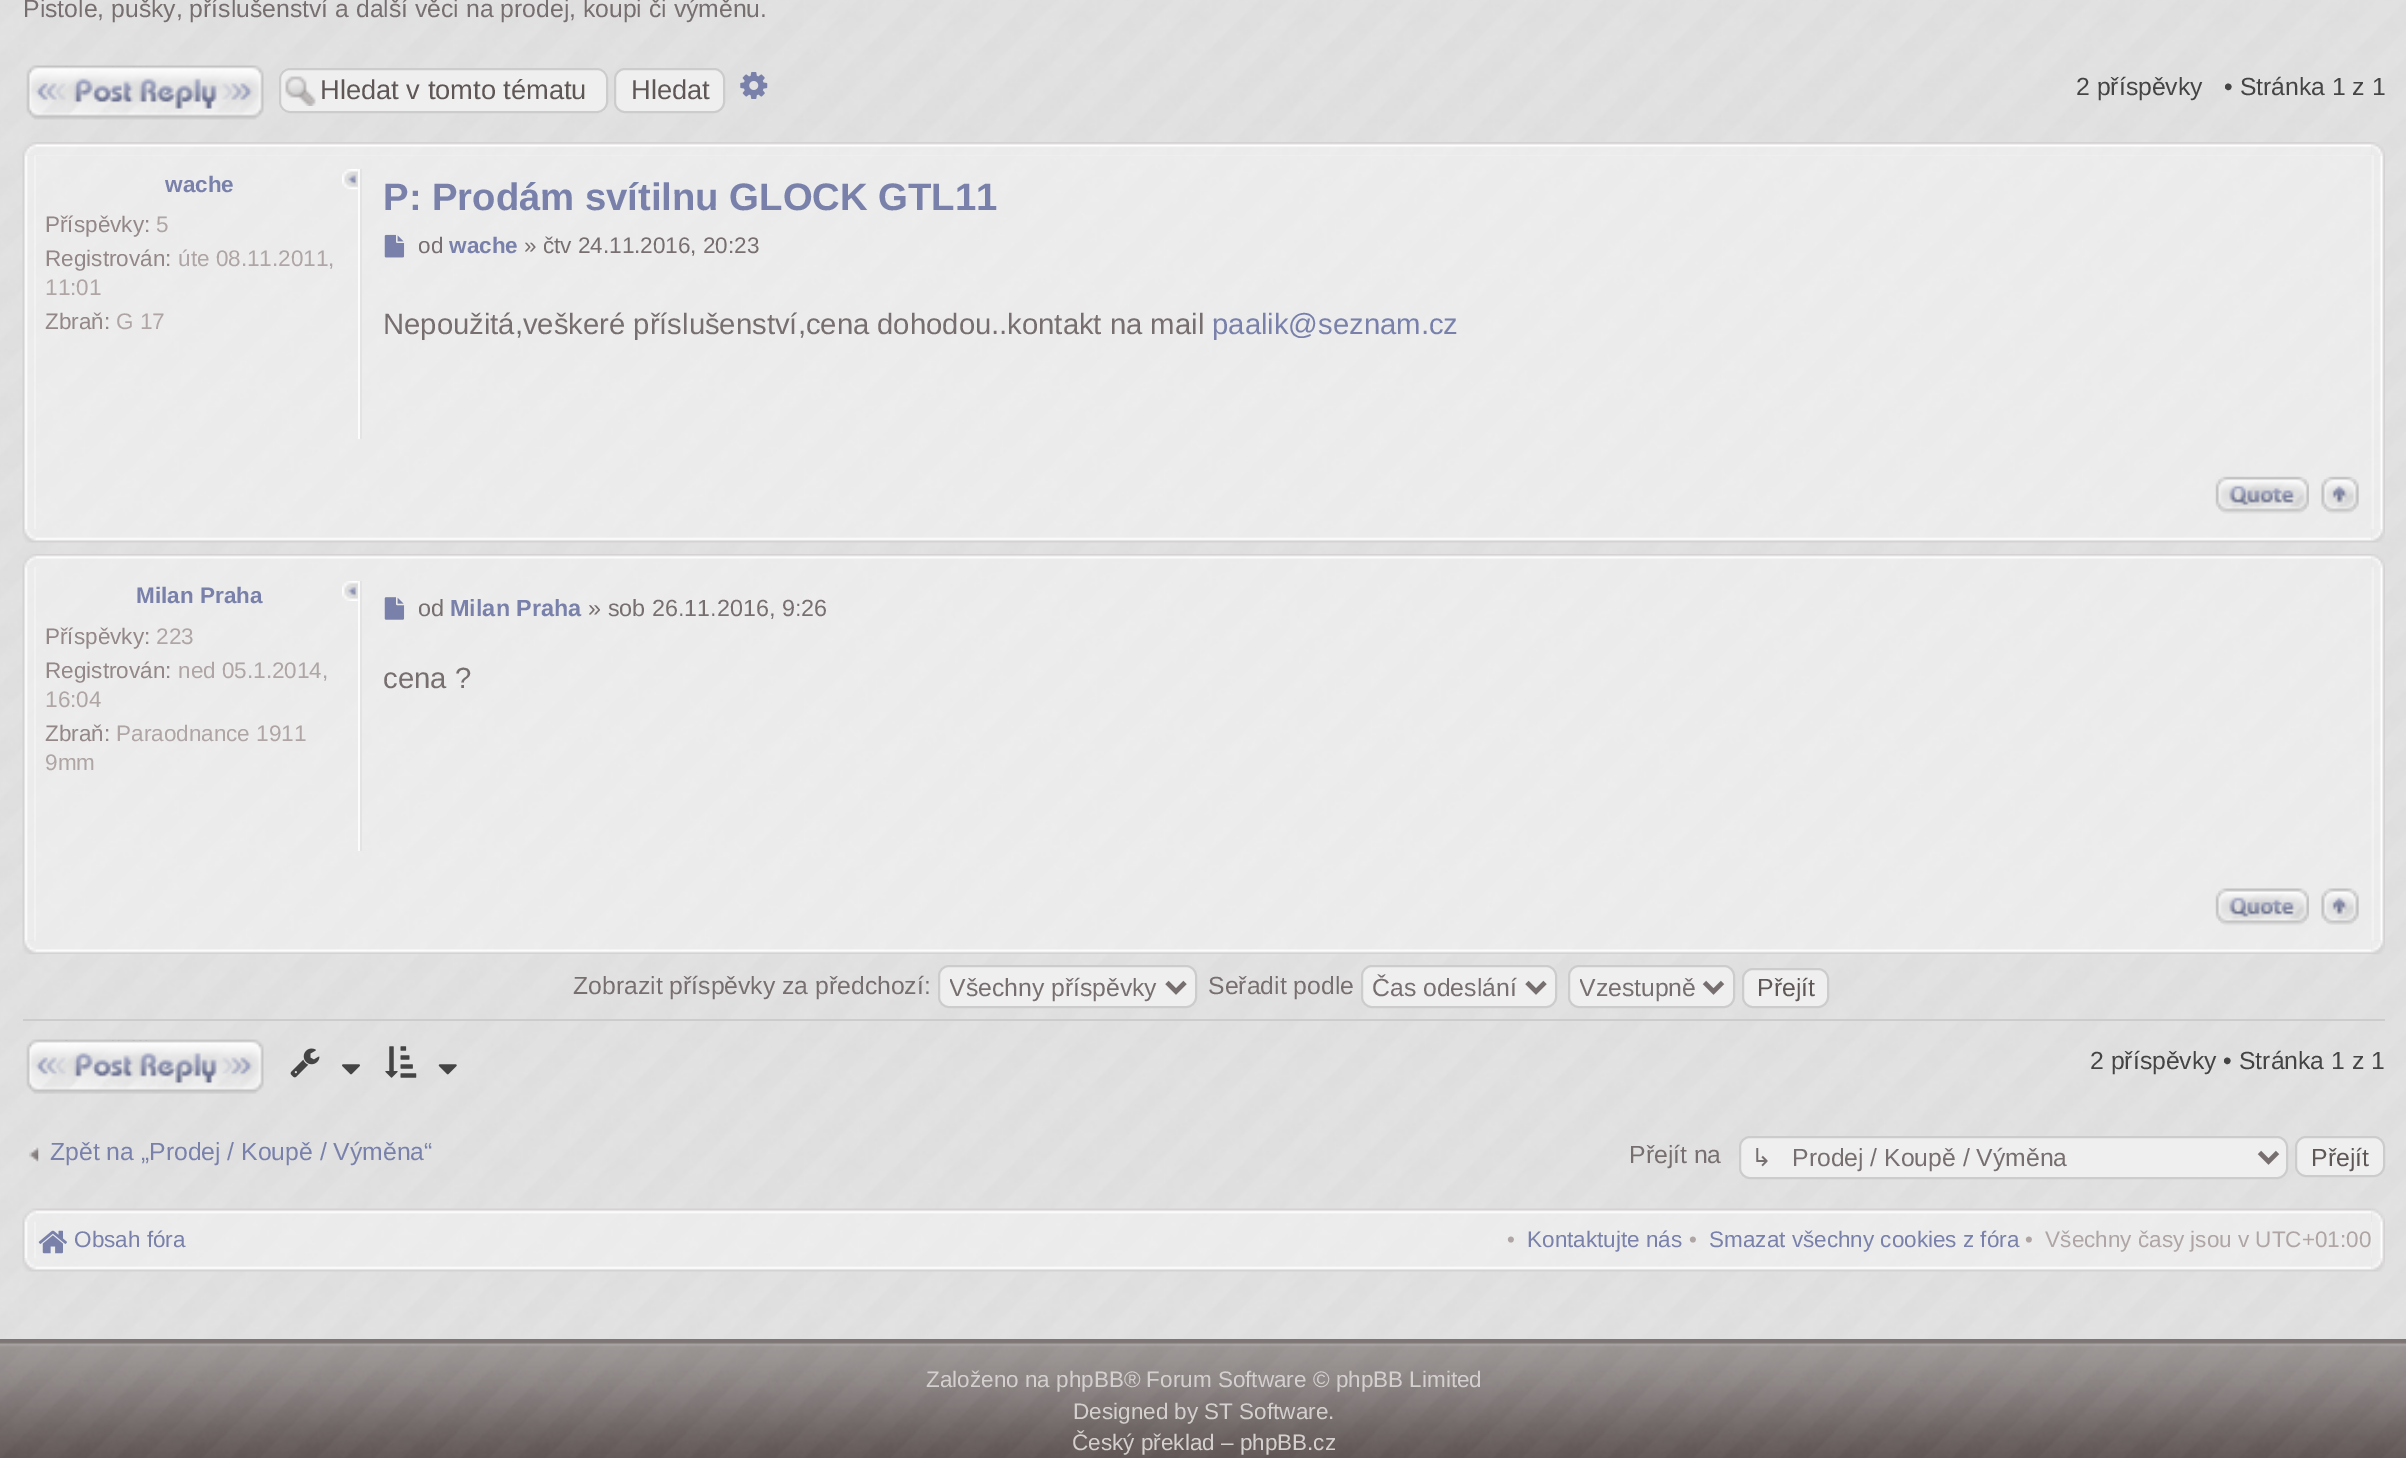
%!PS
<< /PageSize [2406 1458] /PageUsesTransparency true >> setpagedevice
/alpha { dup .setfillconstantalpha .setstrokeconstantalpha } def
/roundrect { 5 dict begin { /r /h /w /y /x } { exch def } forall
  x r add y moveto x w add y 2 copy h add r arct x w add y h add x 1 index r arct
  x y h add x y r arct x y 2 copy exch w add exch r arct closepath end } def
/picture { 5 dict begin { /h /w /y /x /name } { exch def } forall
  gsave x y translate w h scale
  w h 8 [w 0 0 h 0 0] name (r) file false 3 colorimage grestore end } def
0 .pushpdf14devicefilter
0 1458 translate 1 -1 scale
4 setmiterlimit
1 setgray
0 0 2406 1458 rectfill
(img1.rgb) 0 1168 2406 171 picture
(img2.rgb) 0 0 2406 1168 picture
/LiberationSans-Regular [24.75 0 0 -24.75 0 0] selectfont
0.467 0.435 0.435 setrgbcolor
23 17 moveto (Pistole, pušky, příslušenství a další věci na prodej, koupi či výměnu.) show
(img3.rgb) 26 65 238 55 picture
0.937 setgray
279 68 329 45 11 roundrect fill
(img4.rgb) 285 76 31 30 picture
0.8 setgray
2 setlinewidth
280 69 327 43 10 roundrect stroke
/LiberationSans-Regular [27.25 0 0 -27.25 0 0] selectfont
0.373 0.341 0.337 setrgbcolor
320 99 moveto (Hledat v tomto tématu) show
0.937 setgray
615 69 109 43 10 roundrect gsave fill grestore
0.8 setgray
stroke
0.373 0.341 0.337 setrgbcolor
631 99 moveto (Hledat) show
(img5.rgb) 740 72 28 27 picture
/LiberationSans-Regular [24.75 0 0 -24.75 0 0] selectfont
0.267 setgray
2076 95 moveto (2 příspěvky) show
2224 95 moveto (• Stránka 1 z 1) show
(img6.rgb) 36 142 2336 14 picture
(img7.rgb) 22 142 14 14 picture
(img8.rgb) 2371 142 14 14 picture
(img9.rgb) 22 155 14 374 picture
(img10.rgb) 2371 155 14 374 picture
0.5 alpha
0.969 setgray
34 155 2340 374 rectfill
1 alpha
0.89 setgray
360 169 2 270 rectfill
0.988 setgray
358 169 2 270 rectfill
/LiberationSans-Bold [22.5 0 0 -22.5 0 0] selectfont
0.475 0.506 0.671 setrgbcolor
165 192 moveto (wache) show
(img11.rgb) 342 169 16 21 picture
/LiberationSans-Regular [22.5 0 0 -22.5 0 0] selectfont
0.576 0.529 0.529 setrgbcolor
45 232 moveto (Příspěvky:) show
0.686 0.647 0.647 setrgbcolor
156 232 moveto (5) show
0.576 0.529 0.529 setrgbcolor
45 266 moveto (Registrován:) show
0.686 0.647 0.647 setrgbcolor
178 266 moveto (úte 08.11.2011,) show
45 295 moveto (11:01) show
0.576 0.529 0.529 setrgbcolor
45 329 moveto (Zbraň:) show
0.686 0.647 0.647 setrgbcolor
116 329 moveto (G 17) show
/LiberationSans-Bold [38.25 0 0 -38.25 0 0] selectfont
0.475 0.506 0.671 setrgbcolor
383 210 moveto (P: Prodám svítilnu GLOCK GTL11) show
(img12.rgb) 384 234 21 24 picture
/LiberationSans-Regular [22.5 0 0 -22.5 0 0] selectfont
0.467 0.435 0.435 setrgbcolor
418 253 moveto (od) show
/LiberationSans-Bold [22.5 0 0 -22.5 0 0] selectfont
0.475 0.506 0.671 setrgbcolor
449 253 moveto (wache) show
/LiberationSans-Regular [22.5 0 0 -22.5 0 0] selectfont
0.467 0.435 0.435 setrgbcolor
524 253 moveto (» čtv 24.11.2016, 20:23) show
/LiberationSans-Regular [29.25 0 0 -29.25 0 0] selectfont
383 334 moveto (Nepoužitá,veškeré příslušenství,cena dohodou..kontakt na mail) show
0.475 0.506 0.671 setrgbcolor
1212 334 moveto (paalik@seznam.cz) show
(img13.rgb) 2215 476 94 38 picture
(img14.rgb) 2217 478 91 34 picture
(img15.rgb) 2321 476 38 38 picture
(img16.rgb) 2321 478 38 34 picture
(img17.rgb) 36 529 2336 14 picture
(img18.rgb) 22 529 14 14 picture
(img19.rgb) 2371 529 14 14 picture
(img20.rgb) 36 554 2336 13 picture
(img21.rgb) 22 554 14 14 picture
(img22.rgb) 2371 554 14 14 picture
(img23.rgb) 22 567 14 374 picture
(img24.rgb) 2371 567 14 374 picture
0.5 alpha
0.969 setgray
34 567 2340 374 rectfill
1 alpha
0.89 setgray
360 581 2 270 rectfill
0.988 setgray
358 581 2 270 rectfill
/LiberationSans-Bold [22.5 0 0 -22.5 0 0] selectfont
0.475 0.506 0.671 setrgbcolor
136 603 moveto (Milan Praha) show
(img25.rgb) 342 581 16 20 picture
/LiberationSans-Regular [22.5 0 0 -22.5 0 0] selectfont
0.576 0.529 0.529 setrgbcolor
45 644 moveto (Příspěvky:) show
0.686 0.647 0.647 setrgbcolor
156 644 moveto (223) show
0.576 0.529 0.529 setrgbcolor
45 678 moveto (Registrován:) show
0.686 0.647 0.647 setrgbcolor
178 678 moveto (ned 05.1.2014,) show
45 707 moveto (16:04) show
0.576 0.529 0.529 setrgbcolor
45 741 moveto (Zbraň:) show
0.686 0.647 0.647 setrgbcolor
116 741 moveto (Paraodnance 1911) show
45 770 moveto (9mm) show
(img26.rgb) 384 597 21 23 picture
/LiberationSans-Regular [23.4 0 0 -23.4 0 0] selectfont
0.467 0.435 0.435 setrgbcolor
418 616 moveto (od) show
/LiberationSans-Bold [23.4 0 0 -23.4 0 0] selectfont
0.475 0.506 0.671 setrgbcolor
450 616 moveto (Milan Praha) show
/LiberationSans-Regular [23.4 0 0 -23.4 0 0] selectfont
0.467 0.435 0.435 setrgbcolor
588 616 moveto (» sob 26.11.2016, 9:26) show
/LiberationSans-Regular [29.25 0 0 -29.25 0 0] selectfont
383 688 moveto (cena ?) show
(img27.rgb) 2215 888 94 38 picture
(img28.rgb) 2217 888 91 36 picture
(img29.rgb) 2321 888 38 37 picture
(img30.rgb) 2321 888 38 36 picture
(img31.rgb) 36 941 2336 13 picture
(img32.rgb) 22 941 14 14 picture
(img33.rgb) 2371 941 14 14 picture
/LiberationSans-Regular [24.75 0 0 -24.75 0 0] selectfont
573 994 moveto (Zobrazit příspěvky za předchozí:) show
0.937 setgray
939 966 257 41 10 roundrect gsave fill grestore
0.8 setgray
stroke
0.467 0.435 0.435 setrgbcolor
4.5 setlinewidth
newpath 1167 982.5 moveto 1176 991.5 lineto 1185 982.5 lineto stroke
gsave
950 972 209 32 rectclip
949 996 moveto (Všechny příspěvky) show
grestore
1208 994 moveto (Seřadit podle) show
0.937 setgray
1362 966 194 41 10 roundrect gsave fill grestore
0.8 setgray
2 setlinewidth
stroke
0.467 0.435 0.435 setrgbcolor
4.5 setlinewidth
newpath 1527 982.5 moveto 1536 991.5 lineto 1545 982.5 lineto stroke
gsave
1373 972 146 32 rectclip
1372 996 moveto (Čas odeslání) show
grestore
0.937 setgray
1569 966 165 41 10 roundrect gsave fill grestore
0.8 setgray
2 setlinewidth
stroke
0.467 0.435 0.435 setrgbcolor
4.5 setlinewidth
newpath 1704.5 982.5 moveto 1713.5 991.5 lineto 1722.5 982.5 lineto stroke
gsave
1580 972 117 32 rectclip
1579 996 moveto (Vzestupně) show
grestore
0.937 setgray
1743 969 85 38 10 roundrect gsave fill grestore
0.8 setgray
2 setlinewidth
stroke
0.373 0.341 0.337 setrgbcolor
1757 996 moveto (Přejít) show
0.8 setgray
23 1019 2362 2 rectfill
(img34.rgb) 26 1039 238 55 picture
(img35.rgb) 290 1048 30 30 picture
(img36.rgb) 342 1064 18 11 picture
(img37.rgb) 385 1046 32 32 picture
(img38.rgb) 438 1064 19 11 picture
0.267 setgray
2090 1069 moveto (2 příspěvky • Stránka 1 z 1) show
(img39.rgb) 29 1147 10 15 picture
0.475 0.506 0.671 setrgbcolor
50 1160 moveto (Zpět na „Prodej / Koupě / Výměna“) show
0.467 0.435 0.435 setrgbcolor
1629 1163 moveto (Přejít na) show
0.937 setgray
1740 1137 547 41 10 roundrect gsave fill grestore
0.8 setgray
stroke
0.467 0.435 0.435 setrgbcolor
4.5 setlinewidth
newpath 2259.5 1152.5 moveto 2268.5 1161.5 lineto 2277.5 1152.5 lineto stroke
/DejaVuSans-Regular [24.75 0 0 -24.75 0 0] selectfont
1751 1166 moveto (↳) show
/LiberationSans-Regular [24.75 0 0 -24.75 0 0] selectfont
1792 1166 moveto (Prodej / Koupě / Výměna) show
0.937 setgray
2296 1137 88 39 10 roundrect gsave fill grestore
0.8 setgray
2 setlinewidth
stroke
0.373 0.341 0.337 setrgbcolor
2311 1166 moveto (Přejít) show
(img40.rgb) 36 1208 2336 14 picture
(img41.rgb) 22 1208 14 14 picture
(img42.rgb) 2372 1208 13 14 picture
(img43.rgb) 22 1222 14 36 picture
(img44.rgb) 2371 1222 14 36 picture
0.5 alpha
0.969 setgray
34 1222 2338 36 rectfill
1 alpha
(img45.rgb) 38 1230 29 24 picture
/LiberationSans-Regular [22.5 0 0 -22.5 0 0] selectfont
0.475 0.506 0.671 setrgbcolor
74 1247 moveto (Obsah fóra) show
0.686 0.647 0.647 setrgbcolor
1507 1247 moveto (•) show
0.475 0.506 0.671 setrgbcolor
1527 1247 moveto (Kontaktujte nás) show
0.686 0.647 0.647 setrgbcolor
1689 1247 moveto (•) show
0.475 0.506 0.671 setrgbcolor
1709 1247 moveto (Smazat všechny cookies z fóra) show
0.686 0.647 0.647 setrgbcolor
2025 1247 moveto (•  Všechny časy jsou v UTC+01:00) show
(img46.rgb) 36 1258 2336 14 picture
(img47.rgb) 22 1258 14 14 picture
(img48.rgb) 2371 1258 14 14 picture
(img49.rgb) 0 1339 2406 119 picture
0.831 0.816 0.812 setrgbcolor
926 1387 moveto (Založeno na phpBB® Forum Software © phpBB Limited) show
1073 1419 moveto (Designed by ST Software.) show
1072 1450 moveto (Český překlad – phpBB.cz) show
.poppdf14devicefilter showpage
